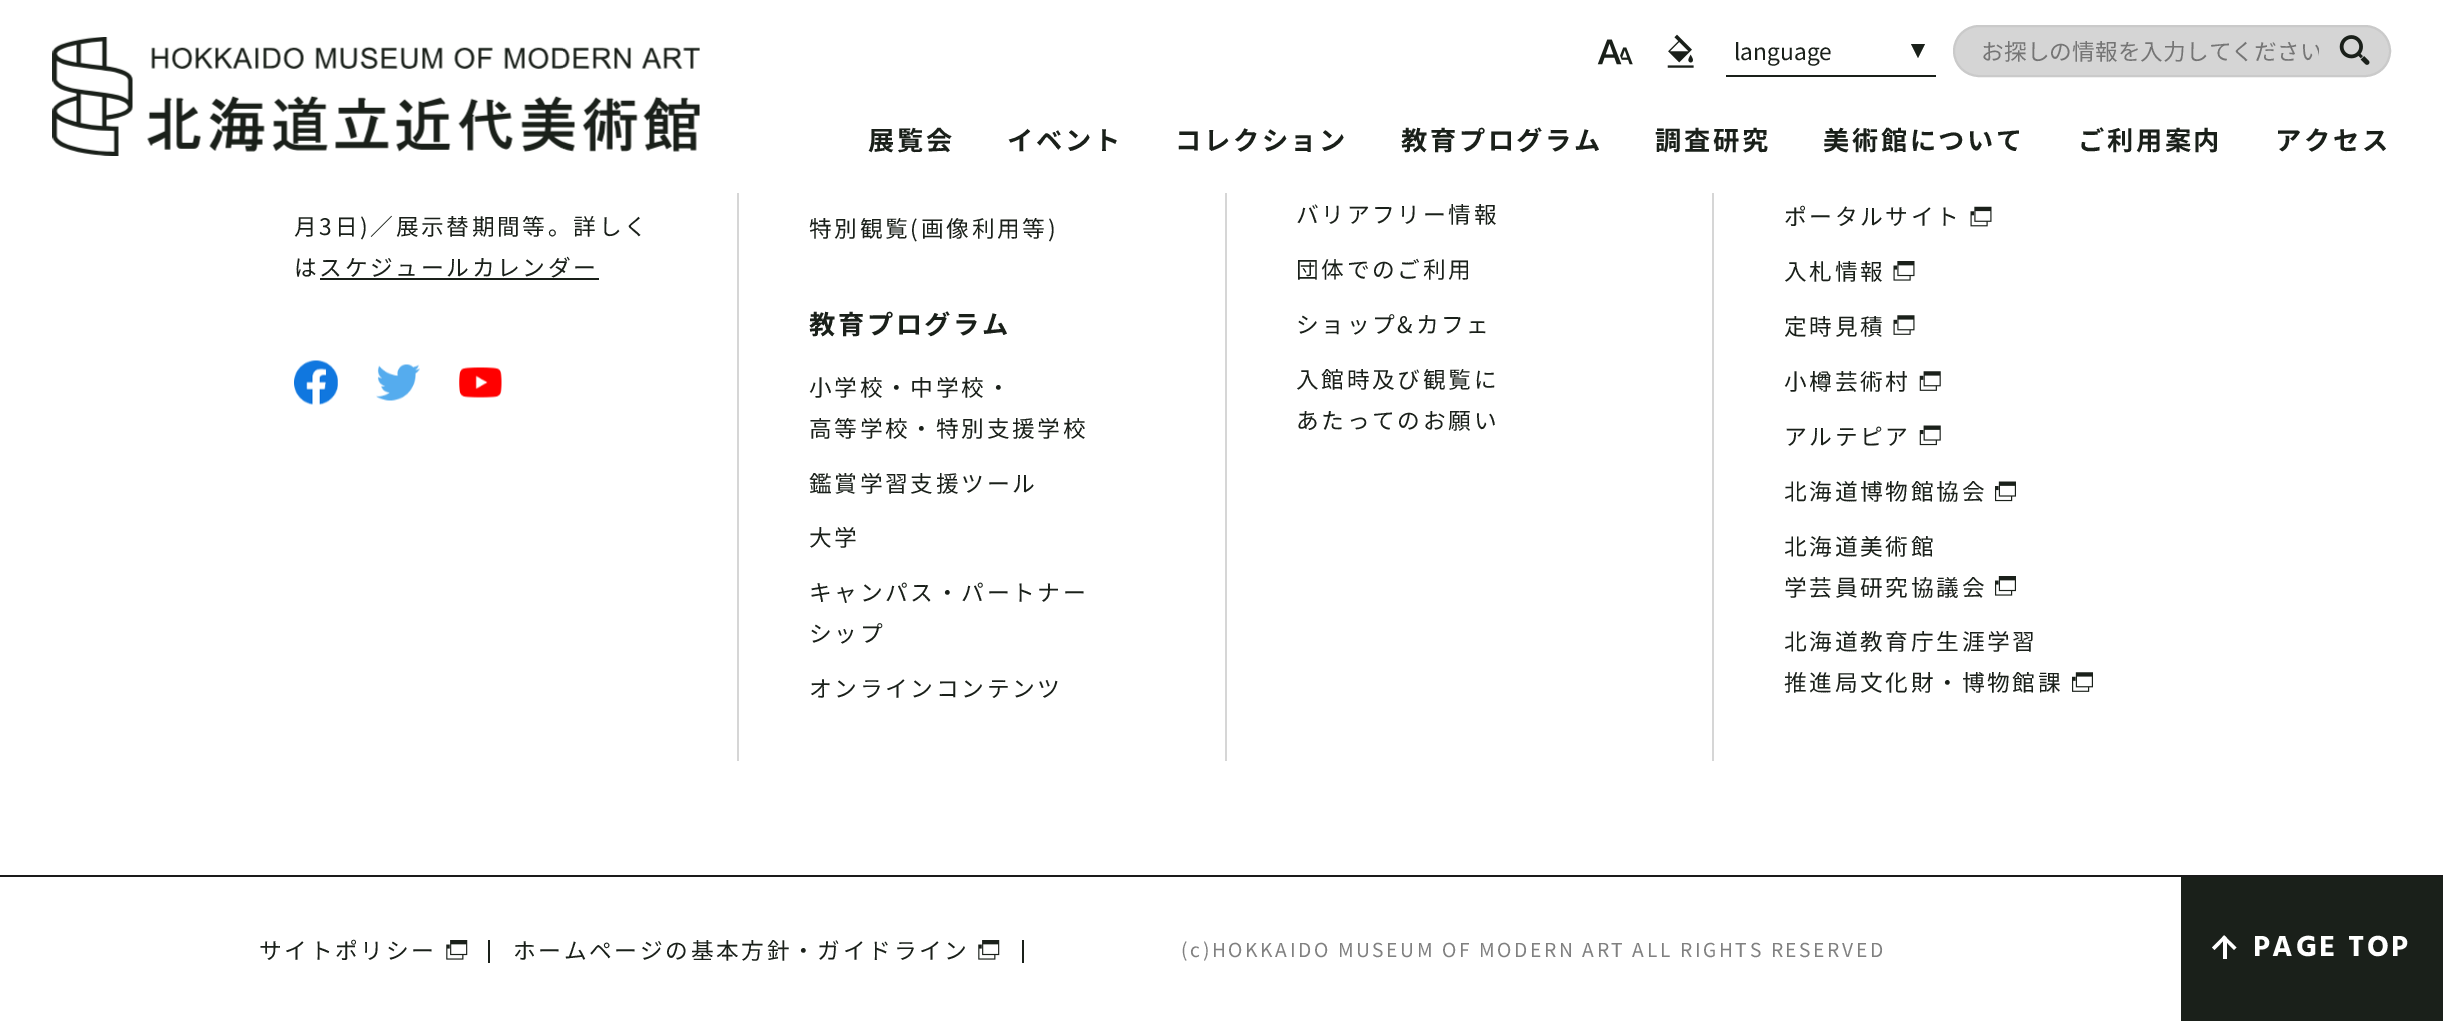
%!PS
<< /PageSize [2443 1021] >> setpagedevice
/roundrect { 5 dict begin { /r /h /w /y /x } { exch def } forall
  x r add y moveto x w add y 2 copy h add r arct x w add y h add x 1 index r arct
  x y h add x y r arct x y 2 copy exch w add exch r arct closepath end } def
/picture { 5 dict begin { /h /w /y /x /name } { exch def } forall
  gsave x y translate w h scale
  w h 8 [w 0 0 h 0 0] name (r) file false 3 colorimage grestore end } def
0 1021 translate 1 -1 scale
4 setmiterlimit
1 setgray
0 0 2443 1021 rectfill
(img1.rgb) 52 37 648 119 picture
(img2.rgb) 1597 39 36 26 picture
(img3.rgb) 1667 34 27 34 picture
0.102 0.125 0.102 setrgbcolor
1726 75 210 2 rectfill
/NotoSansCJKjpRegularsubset-Regular [22.75 0 0 -22.75 0 0] selectfont
1734 60 moveto (language) show
newpath 1911 44 moveto 1925 44 lineto 1918 58 lineto closepath fill
0.835 setgray
1954 26 436 50 25 roundrect gsave fill grestore
0.792 setgray
2 setlinewidth
stroke
gsave
1981 35 338 33 rectclip
0.459 setgray
1981 60 moveto (お探しの情報を入力してください) show
grestore
(img4.rgb) 2339 35 31 30 picture
/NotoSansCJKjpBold-Bold [26.25 0 0 -26.25 0 0] selectfont
0.102 0.125 0.102 setrgbcolor
868 150 moveto 2.62 0 (展覧会) ashow
1007 150 moveto 2.62 0 (イベント) ashow
1175 150 moveto 2.62 0 (コレクション) ashow
1401 150 moveto 2.62 0 (教育プログラム) ashow
1655 150 moveto 2.62 0 (調査研究) ashow
1823 150 moveto 2.62 0 (美術館について) ashow
2078 150 moveto 2.62 0 (ご利用案内) ashow
2275 150 moveto 2.62 0 (アクセス) ashow
/NotoSansCJKjpRegularsubset-Regular [22.75 0 0 -22.75 0 0] selectfont
294 235 moveto 2.62 0 (月3日\)／展示替期間等。詳しく) ashow
294 276 moveto 2.62 0 (はスケジュールカレンダー) ashow
320 278 279 2 rectfill
(img5.rgb) 294 360 44 45 picture
(img6.rgb) 376 364 44 37 picture
(img7.rgb) 459 367 43 31 picture
0.839 setgray
737 193 2 568 rectfill
1225 193 2 568 rectfill
0.102 0.125 0.102 setrgbcolor
809 237 moveto 2.62 0 (特別観覧\(画像利用等\)) ashow
/NotoSansCJKjpBold-Bold [26.25 0 0 -26.25 0 0] selectfont
809 334 moveto 2.62 0 (教育プログラム) ashow
/NotoSansCJKjpRegularsubset-Regular [22.75 0 0 -22.75 0 0] selectfont
809 396 moveto 2.62 0 (小学校・中学校・) ashow
809 437 moveto 2.62 0 (高等学校・特別支援学校) ashow
809 492 moveto 2.62 0 (鑑賞学習支援ツール) ashow
809 546 moveto 2.62 0 (大学) ashow
809 601 moveto 2.62 0 (キャンパス・パートナー) ashow
809 642 moveto 2.62 0 (シップ) ashow
809 697 moveto 2.62 0 (オンラインコンテンツ) ashow
0.839 setgray
1712 193 2 568 rectfill
0.102 0.125 0.102 setrgbcolor
1296 223 moveto 2.62 0 (バリアフリー情報) ashow
1296 278 moveto 2.62 0 (団体でのご利用) ashow
1296 333 moveto 2.62 0 (ショップ&カフェ) ashow
1296 388 moveto 2.62 0 (入館時及び観覧に) ashow
1296 429 moveto 2.62 0 (あたってのお願い) ashow
1784 225 moveto 2.62 0 (ポータルサイト) ashow
(img8.rgb) 1970 206 22 21 picture
1784 280 moveto 2.62 0 (入札情報) ashow
(img9.rgb) 1893 261 22 20 picture
1784 335 moveto 2.62 0 (定時見積) ashow
(img10.rgb) 1893 315 22 20 picture
1784 390 moveto 2.62 0 (小樽芸術村) ashow
(img11.rgb) 1919 371 22 20 picture
1784 445 moveto 2.62 0 (アルテピア) ashow
(img12.rgb) 1919 425 22 21 picture
1784 500 moveto 2.62 0 (北海道博物館協会) ashow
(img13.rgb) 1995 481 21 21 picture
1784 555 moveto 2.62 0 (北海道美術館) ashow
1784 596 moveto 2.62 0 (学芸員研究協議会) ashow
(img14.rgb) 1995 576 21 20 picture
1784 650 moveto 2.62 0 (北海道教育庁生涯学習) ashow
1784 691 moveto 2.62 0 (推進局文化財・博物館課) ashow
(img15.rgb) 2072 672 21 20 picture
0.102 setgray
0 875 2443 2 rectfill
0.102 0.125 0.102 setrgbcolor
259 959 moveto 2.62 0 (サイトポリシー) ashow
(img16.rgb) 446 940 22 20 picture
488 940 2 23 rectfill
513 959 moveto 2.62 0 (ホームページの基本方針・ガイドライン) ashow
(img16.rgb) 978 940 22 20 picture
1022 940 2 23 rectfill
/NotoSansCJKjpRegularsubset-Regular [19.25 0 0 -19.25 0 0] selectfont
0.502 setgray
1181 957 moveto 2.62 0 (\(c\)HOKKAIDO MUSEUM OF MODERN ART ALL RIGHTS RESERVED) ashow
0.102 0.125 0.102 setrgbcolor
2181 877 262 144 rectfill
1 setgray
2223 938 4 21 rectfill
newpath 2224 935.5 moveto 2236.5 947.5 lineto 2234 950 lineto 2222 937.5 lineto closepath fill
newpath 2224 935.5 moveto 2226.5 937.5 lineto 2214.5 950 lineto 2212 947.5 lineto closepath fill
/Hind-Bold [29.75 0 0 -29.75 0 0] selectfont
2253 956 moveto 2.62 0 (PAGE TOP) ashow
showpage
